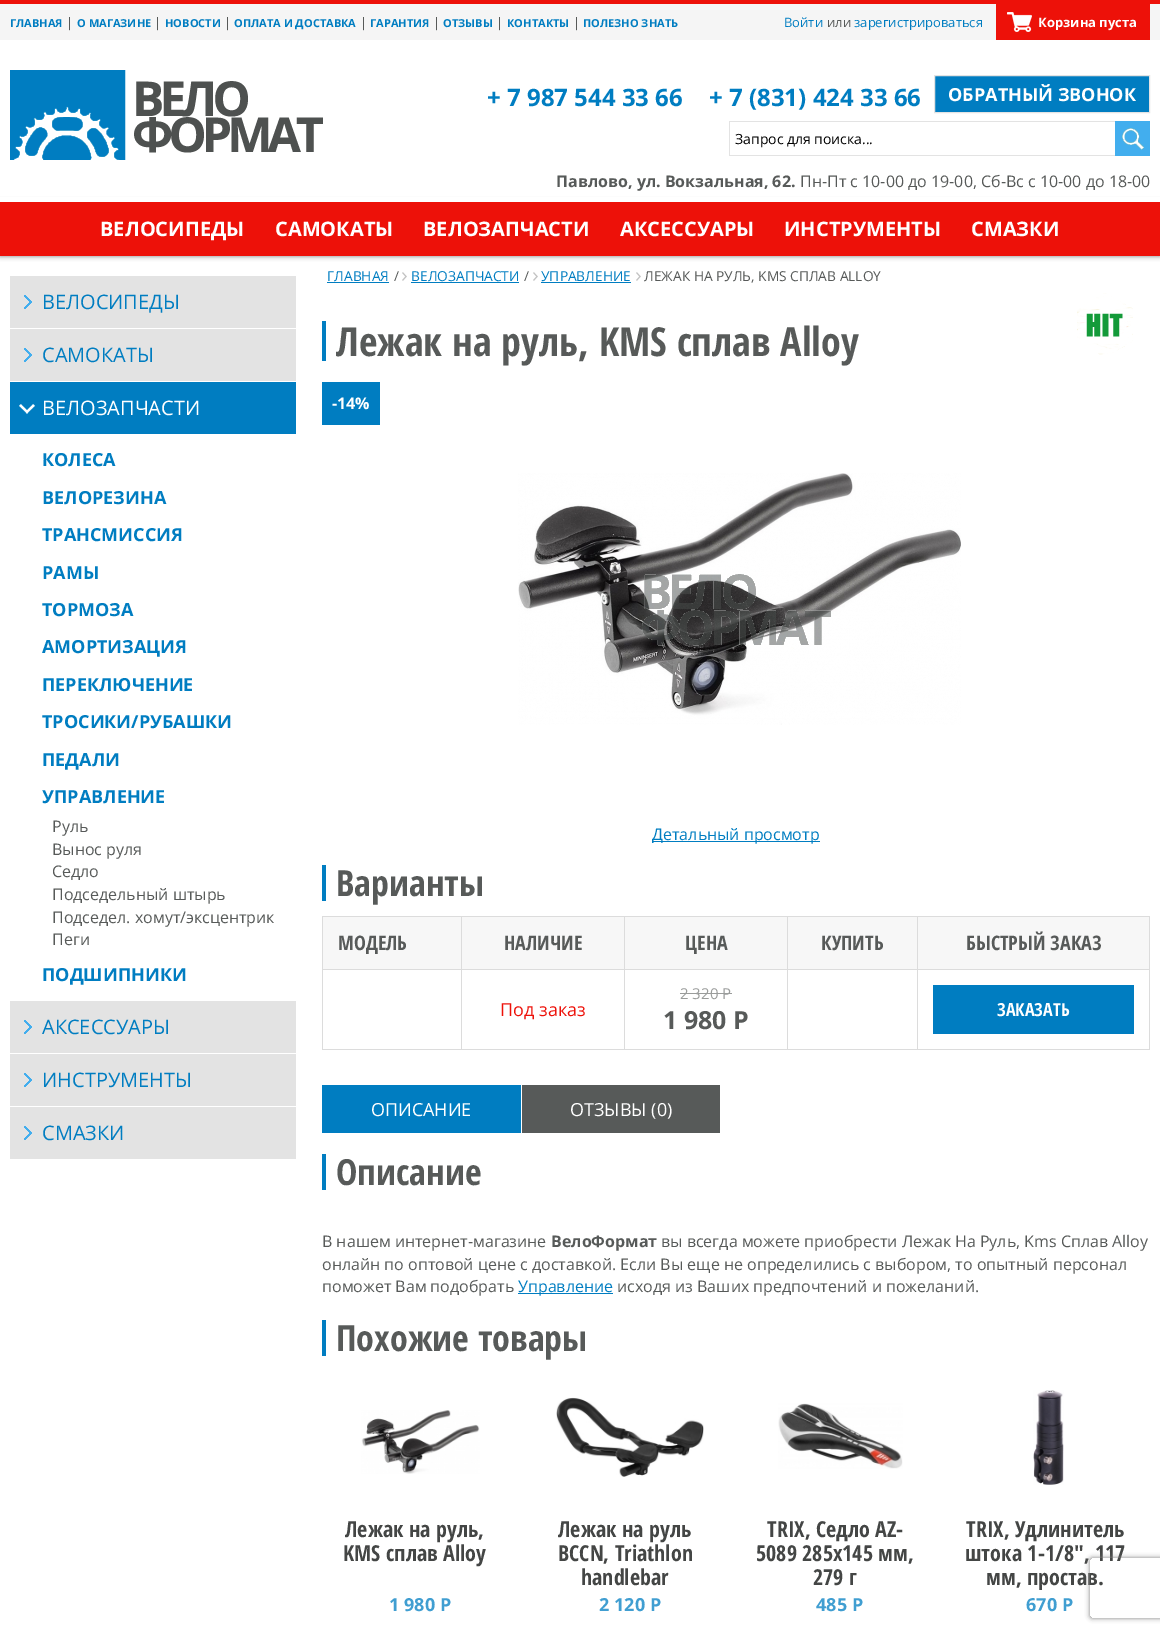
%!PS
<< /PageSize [1160 1632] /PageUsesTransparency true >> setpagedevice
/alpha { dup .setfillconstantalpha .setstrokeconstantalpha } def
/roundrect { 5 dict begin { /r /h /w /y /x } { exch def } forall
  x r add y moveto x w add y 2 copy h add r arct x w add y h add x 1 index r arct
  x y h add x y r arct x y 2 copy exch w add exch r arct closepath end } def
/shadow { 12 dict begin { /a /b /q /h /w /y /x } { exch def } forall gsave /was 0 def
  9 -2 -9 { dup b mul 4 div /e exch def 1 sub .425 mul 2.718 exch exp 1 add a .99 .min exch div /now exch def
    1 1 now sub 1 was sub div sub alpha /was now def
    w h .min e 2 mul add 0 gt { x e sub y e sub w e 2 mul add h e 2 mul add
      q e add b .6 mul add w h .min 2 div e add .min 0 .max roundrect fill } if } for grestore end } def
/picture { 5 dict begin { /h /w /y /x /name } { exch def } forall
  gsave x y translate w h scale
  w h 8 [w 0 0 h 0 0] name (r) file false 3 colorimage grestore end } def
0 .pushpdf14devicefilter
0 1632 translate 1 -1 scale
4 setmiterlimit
1 setgray
0 0 1160 1632 rectfill
0 setgray
0 202 1160 54 0 2.5 0.5 shadow
1 setgray
0 197 1160 5 rectfill
0.929 0.067 0.035 setrgbcolor
0 0 1160 4 rectfill
0.961 setgray
0 4 1160 36 rectfill
/OpenSans-Bold [11 0 0 -11 0 0] selectfont
0 0.49 0.757 setrgbcolor
10 27 moveto (ГЛАВНАЯ) show
/OpenSans-Regular [13 0 0 -13 0 0] selectfont
0.341 0.353 0.349 setrgbcolor
66 27 moveto (|) show
/OpenSans-Bold [11 0 0 -11 0 0] selectfont
0 0.49 0.757 setrgbcolor
77 27 moveto (О МАГАЗИНЕ) show
/OpenSans-Regular [13 0 0 -13 0 0] selectfont
0.341 0.353 0.349 setrgbcolor
154 27 moveto (|) show
/OpenSans-Bold [11 0 0 -11 0 0] selectfont
0 0.49 0.757 setrgbcolor
165 27 moveto (НОВОСТИ) show
/OpenSans-Regular [13 0 0 -13 0 0] selectfont
0.341 0.353 0.349 setrgbcolor
224 27 moveto (|) show
/OpenSans-Bold [11 0 0 -11 0 0] selectfont
0 0.49 0.757 setrgbcolor
234 27 moveto (ОПЛАТА И ДОСТАВКА) show
/OpenSans-Regular [13 0 0 -13 0 0] selectfont
0.341 0.353 0.349 setrgbcolor
360 27 moveto (|) show
/OpenSans-Bold [11 0 0 -11 0 0] selectfont
0 0.49 0.757 setrgbcolor
370 27 moveto (ГАРАНТИЯ) show
/OpenSans-Regular [13 0 0 -13 0 0] selectfont
0.341 0.353 0.349 setrgbcolor
433 27 moveto (|) show
/OpenSans-Bold [11 0 0 -11 0 0] selectfont
0 0.49 0.757 setrgbcolor
443 27 moveto (ОТЗЫВЫ) show
/OpenSans-Regular [13 0 0 -13 0 0] selectfont
0.341 0.353 0.349 setrgbcolor
496 27 moveto (|) show
/OpenSans-Bold [11 0 0 -11 0 0] selectfont
0 0.49 0.757 setrgbcolor
507 27 moveto (КОНТАКТЫ) show
/OpenSans-Regular [13 0 0 -13 0 0] selectfont
0.341 0.353 0.349 setrgbcolor
573 27 moveto (|) show
/OpenSans-Bold [11 0 0 -11 0 0] selectfont
0 0.49 0.757 setrgbcolor
583 27 moveto (ПОЛЕЗНО ЗНАТЬ) show
/OpenSans-Regular [13 0 0 -13 0 0] selectfont
784 27 moveto (Войти) show
0.341 0.353 0.349 setrgbcolor
827 27 moveto (или) show
0 0.49 0.757 setrgbcolor
854 27 moveto (зарегистрироваться) show
0.929 0.067 0.035 setrgbcolor
996 4 154 36 rectfill
(img1.rgb) 1007 12 25 20 picture
/OpenSans-Bold [13 0 0 -13 0 0] selectfont
1 setgray
1038 27 moveto (Корзина пуста) show
(img2.rgb) 10 70 313 90 picture
/OpenSans-Bold [24 0 0 -24 0 0] selectfont
0 0.49 0.757 setrgbcolor
487 106 moveto (+ 7 987 544 33 66) show
709 106 moveto (+ 7 \(831\) 424 33 66) show
newpath 934.5 75.5 moveto 1149.5 75.5 lineto 1149.5 112.5 lineto 934.5 112.5 lineto closepath gsave fill grestore
0.89 setgray
stroke
/OpenSans-Bold [18 0 0 -18 0 0] selectfont
1 setgray
948 101 moveto (ОБРАТНЫЙ ЗВОНОК) show
0.89 setgray
729 121 386 1 rectfill
729 155 386 1 rectfill
729 121 1 35 rectfill
/OpenSans-Regular [14 0 0 -14 0 0] selectfont
0 setgray
735 144 moveto (Запрос для поиска...) show
(img3.rgb) 1115 121 35 35 picture
/OpenSans-Bold [16 0 0 -16 0 0] selectfont
0.341 0.353 0.349 setrgbcolor
556 187 moveto (Павлово, ул. Вокзальная, 62.) show
/OpenSans-Regular [16 0 0 -16 0 0] selectfont
800 187 moveto (Пн-Пт с 10-00 до 19-00, Сб-Вс с 10-00 до 18-00) show
0.929 0.067 0.035 setrgbcolor
0 202 1160 54 rectfill
/OpenSans-Bold [20 0 0 -20 0 0] selectfont
1 setgray
100 236 moveto (ВЕЛОСИПЕДЫ) show
275 236 moveto (САМОКАТЫ) show
423 236 moveto (ВЕЛОЗАПЧАСТИ) show
620 236 moveto (АКСЕССУАРЫ) show
784 236 moveto (ИНСТРУМЕНТЫ) show
971 236 moveto (СМАЗКИ) show
0.89 setgray
10 276 286 52 rectfill
(img4.rgb) 24 295 8 14 picture
/OpenSans-Regular [20 0 0 -20 0 0] selectfont
0 0.49 0.757 setrgbcolor
42 309 moveto (ВЕЛОСИПЕДЫ) show
0.89 setgray
10 329 286 52 rectfill
(img4.rgb) 24 348 8 14 picture
0 0.49 0.757 setrgbcolor
42 362 moveto (САМОКАТЫ) show
10 382 286 52 rectfill
(img5.rgb) 19 404 16 10 picture
1 setgray
42 415 moveto (ВЕЛОЗАПЧАСТИ) show
/OpenSans-Bold [18 0 0 -18 0 0] selectfont
0 0.49 0.757 setrgbcolor
42 466 moveto (КОЛЕСА) show
42 504 moveto (ВЕЛОРЕЗИНА) show
42 541 moveto (ТРАНСМИССИЯ) show
42 579 moveto (РАМЫ) show
42 616 moveto (ТОРМОЗА) show
42 653 moveto (АМОРТИЗАЦИЯ) show
42 691 moveto (ПЕРЕКЛЮЧЕНИЕ) show
42 728 moveto (ТРОСИКИ/РУБАШКИ) show
42 766 moveto (ПЕДАЛИ) show
42 803 moveto (УПРАВЛЕНИЕ) show
/OpenSans-Regular [16 0 0 -16 0 0] selectfont
0.341 0.353 0.349 setrgbcolor
52 832 moveto (Руль) show
52 855 moveto (Вынос руля) show
52 877 moveto (Седло) show
52 900 moveto (Подседельный штырь) show
52 923 moveto (Подседел. хомут/эксцентрик) show
52 945 moveto (Пеги) show
/OpenSans-Bold [18 0 0 -18 0 0] selectfont
0 0.49 0.757 setrgbcolor
42 981 moveto (ПОДШИПНИКИ) show
0.89 setgray
10 1001 286 52 rectfill
(img4.rgb) 24 1020 8 14 picture
/OpenSans-Regular [20 0 0 -20 0 0] selectfont
0 0.49 0.757 setrgbcolor
42 1034 moveto (АКСЕССУАРЫ) show
0.89 setgray
10 1054 286 52 rectfill
(img4.rgb) 24 1073 8 14 picture
0 0.49 0.757 setrgbcolor
42 1087 moveto (ИНСТРУМЕНТЫ) show
0.89 setgray
10 1107 286 52 rectfill
(img4.rgb) 24 1126 8 14 picture
0 0.49 0.757 setrgbcolor
42 1140 moveto (СМАЗКИ) show
/OpenSans-Regular [13.75 0 0 -13.75 0 0] selectfont
327 281 moveto (ГЛАВНАЯ) show
327 282 62 1 rectfill
0.341 0.353 0.349 setrgbcolor
394 281 moveto (/) show
(img6.rgb) 402 272 5 9 picture
0 0.49 0.757 setrgbcolor
411 281 moveto (ВЕЛОЗАПЧАСТИ) show
411 282 108 1 rectfill
0.341 0.353 0.349 setrgbcolor
524 281 moveto (/) show
(img6.rgb) 533 272 5 9 picture
0 0.49 0.757 setrgbcolor
541 281 moveto (УПРАВЛЕНИЕ) show
541 282 90 1 rectfill
(img6.rgb) 636 272 5 9 picture
0.341 0.353 0.349 setrgbcolor
644 281 moveto (ЛЕЖАК НА РУЛЬ, KMS СПЛАВ ALLOY) show
0 0.49 0.757 setrgbcolor
322 321 4 40 rectfill
/OpenSansCondensed-Bold [40 0 0 -40 0 0] selectfont
0.341 0.353 0.349 setrgbcolor
336 356 moveto (Лежак на руль, KMS сплав Alloy) show
0 0.49 0.757 setrgbcolor
322 382 58 43 rectfill
/OpenSans-Bold [16 0 0 -16 0 0] selectfont
1 setgray
332 409 moveto (-14%) show
(img7.rgb) 518 473 443 252 picture
0 0.49 0.757 setrgbcolor
652 841 168 1 rectfill
/OpenSans-Regular [16 0 0 -16 0 0] selectfont
652 840 moveto (Детальный просмотр) show
322 865 4 36 rectfill
/OpenSansCondensed-Bold [36 0 0 -36 0 0] selectfont
0.341 0.353 0.349 setrgbcolor
336 896 moveto (Варианты) show
0.969 setgray
323 917 826 52 rectfill
0.863 setgray
917 916 233 1 rectfill
917 969 233 1 rectfill
1149 969 1 81 rectfill
917 1049 233 1 rectfill
917 969 1 81 rectfill
787 969 131 1 rectfill
917 916 1 54 rectfill
787 916 131 1 rectfill
787 1049 131 1 rectfill
787 969 1 81 rectfill
624 969 164 1 rectfill
787 916 1 54 rectfill
624 916 164 1 rectfill
624 1049 164 1 rectfill
624 969 1 81 rectfill
461 969 164 1 rectfill
624 916 1 54 rectfill
461 916 164 1 rectfill
461 1049 164 1 rectfill
461 969 1 81 rectfill
322 969 140 1 rectfill
461 916 1 54 rectfill
322 916 140 1 rectfill
322 1049 140 1 rectfill
322 969 1 81 rectfill
322 916 1 54 rectfill
/OpenSansCondensed-Bold [20 0 0 -20 0 0] selectfont
0.341 0.353 0.349 setrgbcolor
338 950 moveto (МОДЕЛЬ) show
504 950 moveto (НАЛИЧИЕ) show
685 950 moveto (ЦЕНА) show
821 950 moveto (КУПИТЬ) show
0.863 setgray
1149 916 1 54 rectfill
0.341 0.353 0.349 setrgbcolor
966 950 moveto (БЫСТРЫЙ ЗАКАЗ) show
/OpenSans-Regular [18 0 0 -18 0 0] selectfont
0.929 0.067 0.035 setrgbcolor
500 1016 moveto (Под заказ) show
/OpenSans-Regular [15 0 0 -15 0 0] selectfont
0.604 0.612 0.608 setrgbcolor
680 999 moveto (2 320 Р) show
680 993 52 1 rectfill
/OpenSans-Bold [25 0 0 -25 0 0] selectfont
0.341 0.353 0.349 setrgbcolor
663 1029 moveto (1 980 Р) show
0 0.49 0.757 setrgbcolor
933 985 201 49 rectfill
/OpenSansCondensed-Bold [18 0 0 -18 0 0] selectfont
1 setgray
997 1016 moveto (ЗАКАЗАТЬ) show
0 0.49 0.757 setrgbcolor
322 1085 199 48 rectfill
/OpenSans-Regular [18 0 0 -18 0 0] selectfont
1 setgray
371 1116 moveto (ОПИСАНИЕ) show
0.341 0.353 0.349 setrgbcolor
522 1085 198 48 rectfill
1 setgray
570 1116 moveto (ОТЗЫВЫ \(0\)) show
0 0.49 0.757 setrgbcolor
322 1154 4 36 rectfill
/OpenSansCondensed-Bold [36 0 0 -36 0 0] selectfont
0.341 0.353 0.349 setrgbcolor
336 1185 moveto (Описание) show
/OpenSans-Regular [16 0 0 -16 0 0] selectfont
322 1247 moveto (В нашем интернет-магазине) show
/OpenSans-Bold [16 0 0 -16 0 0] selectfont
551 1247 moveto (ВелоФормат) show
/OpenSans-Regular [16 0 0 -16 0 0] selectfont
661 1247 moveto (вы всегда можете приобрести Лежак На Руль, Kms Сплав Alloy) show
322 1270 moveto (онлайн по оптовой цене с доставкой. Если Вы еще не определились с выбором, то опытный персонал) show
322 1292 moveto (поможет Вам подобрать) show
0 0.49 0.757 setrgbcolor
518 1293 95 1 rectfill
518 1292 moveto (Управление) show
0.341 0.353 0.349 setrgbcolor
617 1292 moveto (исходя из Ваших предпочтений и пожеланий.) show
0 0.49 0.757 setrgbcolor
322 1320 4 36 rectfill
/OpenSansCondensed-Bold [36 0 0 -36 0 0] selectfont
0.341 0.353 0.349 setrgbcolor
336 1351 moveto (Похожие товары) show
(img8.rgb) 361 1410 119 64 picture
/OpenSansCondensed-Bold [22 0 0 -22 0 0] selectfont
0.267 0.275 0.271 setrgbcolor
345 1537 moveto (Лежак на руль,) show
343 1561 moveto (KMS сплав Alloy) show
/OpenSans-Bold [18 0 0 -18 0 0] selectfont
0.251 0.62 0.82 setrgbcolor
389 1611 moveto (1 980 Р) show
(img9.rgb) 556 1397 148 80 picture
/OpenSansCondensed-Bold [22 0 0 -22 0 0] selectfont
0.267 0.275 0.271 setrgbcolor
558 1537 moveto (Лежак на руль) show
558 1561 moveto (BCCN, Triathlon) show
581 1585 moveto (handlebar) show
/OpenSans-Bold [18 0 0 -18 0 0] selectfont
0.251 0.62 0.82 setrgbcolor
599 1611 moveto (2 120 Р) show
(img10.rgb) 778 1403 125 66 picture
/OpenSansCondensed-Bold [22 0 0 -22 0 0] selectfont
0.267 0.275 0.271 setrgbcolor
767 1537 moveto (TRIX, Седло AZ-) show
756 1561 moveto (5089 285x145 мм,) show
813 1585 moveto (279 г) show
/OpenSans-Bold [18 0 0 -18 0 0] selectfont
0.251 0.62 0.82 setrgbcolor
816 1611 moveto (485 Р) show
(img11.rgb) 1077 293 56 62 picture
(img12.rgb) 1033 1390 31 95 picture
/OpenSansCondensed-Bold [22 0 0 -22 0 0] selectfont
0.267 0.275 0.271 setrgbcolor
966 1537 moveto (TRIX, Удлинитель) show
965 1561 moveto (штока 1-1/8", 117) show
gsave
957 1511 176 79 rectclip
986 1585 moveto (мм, простав.) show
grestore
/OpenSans-Bold [18 0 0 -18 0 0] selectfont
0.251 0.62 0.82 setrgbcolor
1026 1611 moveto (670 Р) show
gsave
newpath 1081 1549 moveto 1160 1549 lineto 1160 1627 lineto 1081 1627 lineto closepath 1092 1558 moveto 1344 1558 lineto 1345 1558 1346 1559 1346 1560 curveto 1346 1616 lineto 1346 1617 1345 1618 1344 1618 curveto 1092 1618 lineto 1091 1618 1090 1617 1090 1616 curveto 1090 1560 lineto 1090 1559 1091 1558 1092 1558 curveto closepath eoclip newpath
0.502 setgray
1090 1558 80 60 2 2.5 1 shadow
grestore
.poppdf14devicefilter showpage
